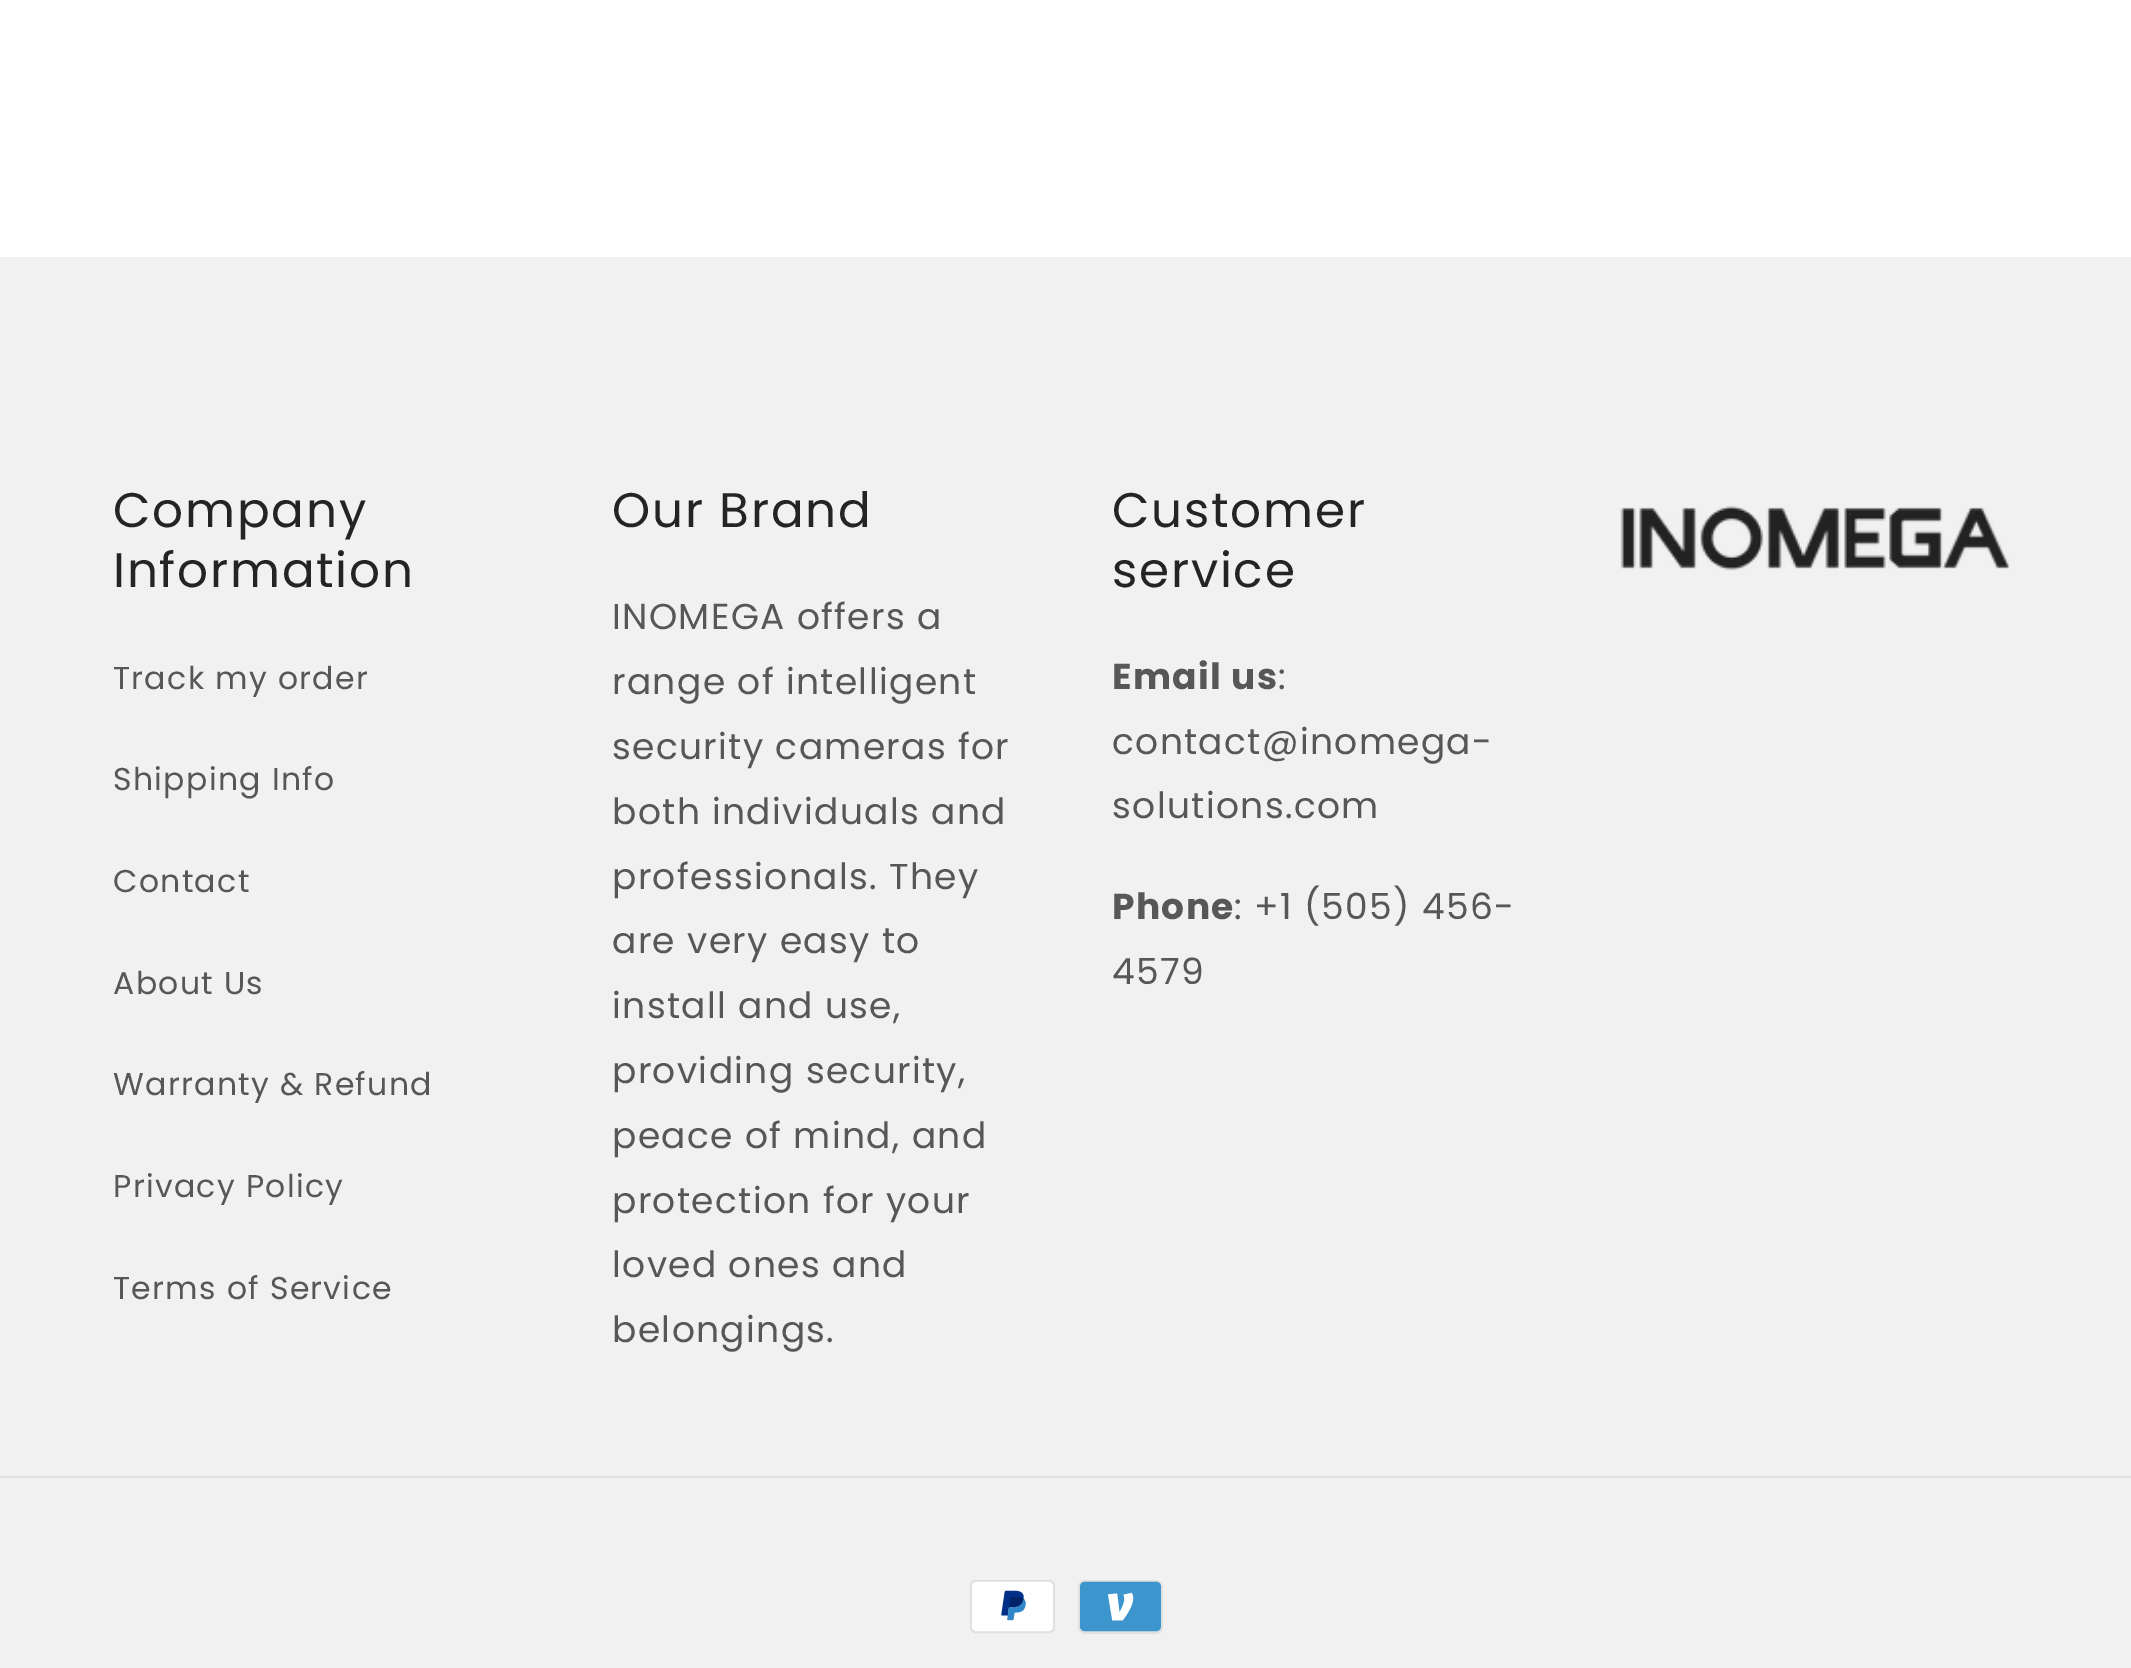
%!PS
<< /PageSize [2131 1668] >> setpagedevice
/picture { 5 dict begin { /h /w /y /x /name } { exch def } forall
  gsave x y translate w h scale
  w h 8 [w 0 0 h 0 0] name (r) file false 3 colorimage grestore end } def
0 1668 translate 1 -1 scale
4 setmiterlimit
1 setgray
0 0 2131 1668 rectfill
0.945 setgray
0 257 2131 1411 rectfill
/Poppins-Regular [48.5 0 0 -48.5 0 0] selectfont
0.141 setgray
113 527 moveto 1.75 0 (Company) ashow
113 587 moveto 1.75 0 (Information) ashow
/Poppins-Regular [31.5 0 0 -31.5 0 0] selectfont
0.341 setgray
113 689 moveto 1.35 0 (Track my order) ashow
113 790 moveto 1.35 0 (Shipping Info) ashow
113 892 moveto 1.35 0 (Contact) ashow
113 994 moveto 1.35 0 (About Us) ashow
113 1095 moveto 1.35 0 (Warranty & Refund) ashow
113 1197 moveto 1.35 0 (Privacy Policy) ashow
113 1299 moveto 1.35 0 (Terms of Service) ashow
/Poppins-Regular [48.5 0 0 -48.5 0 0] selectfont
0.141 setgray
612 527 moveto 1.75 0 (Our Brand) ashow
/Poppins-Regular [36 0 0 -36 0 0] selectfont
0.341 setgray
612 629 moveto 1.35 0 (INOMEGA offers a) ashow
612 694 moveto 1.35 0 (range of intelligent) ashow
612 759 moveto 1.35 0 (security cameras for) ashow
612 824 moveto 1.35 0 (both individuals and) ashow
612 889 moveto 1.35 0 (professionals. They) ashow
612 953 moveto 1.35 0 (are very easy to) ashow
612 1018 moveto 1.35 0 (install and use,) ashow
612 1083 moveto 1.35 0 (providing security,) ashow
612 1148 moveto 1.35 0 (peace of mind, and) ashow
612 1213 moveto 1.35 0 (protection for your) ashow
612 1277 moveto 1.35 0 (loved ones and) ashow
612 1342 moveto 1.35 0 (belongings.) ashow
/Poppins-Regular [48.5 0 0 -48.5 0 0] selectfont
0.141 setgray
1112 527 moveto 1.75 0 (Customer) ashow
1112 587 moveto 1.75 0 (service) ashow
/Poppins-Bold [36 0 0 -36 0 0] selectfont
0.341 setgray
1112 689 moveto 1.35 0 (Email us) ashow
/Poppins-Regular [36 0 0 -36 0 0] selectfont
1278 689 moveto 1.35 0 (:) ashow
1112 754 moveto 1.35 0 (contact@inomega-) ashow
1112 818 moveto 1.35 0 (solutions.com) ashow
/Poppins-Bold [36 0 0 -36 0 0] selectfont
1112 919 moveto 1.35 0 (Phone) ashow
/Poppins-Regular [36 0 0 -36 0 0] selectfont
1234 919 moveto 1.35 0 (: +1 \(505\) 456-) ashow
1112 984 moveto 1.35 0 (4579) ashow
(img1.rgb) 1620 506 390 65 picture
0.882 setgray
0 1476 2131 2 rectfill
(img2.rgb) 970 1580 85 54 picture
(img3.rgb) 1078 1580 85 54 picture
showpage
